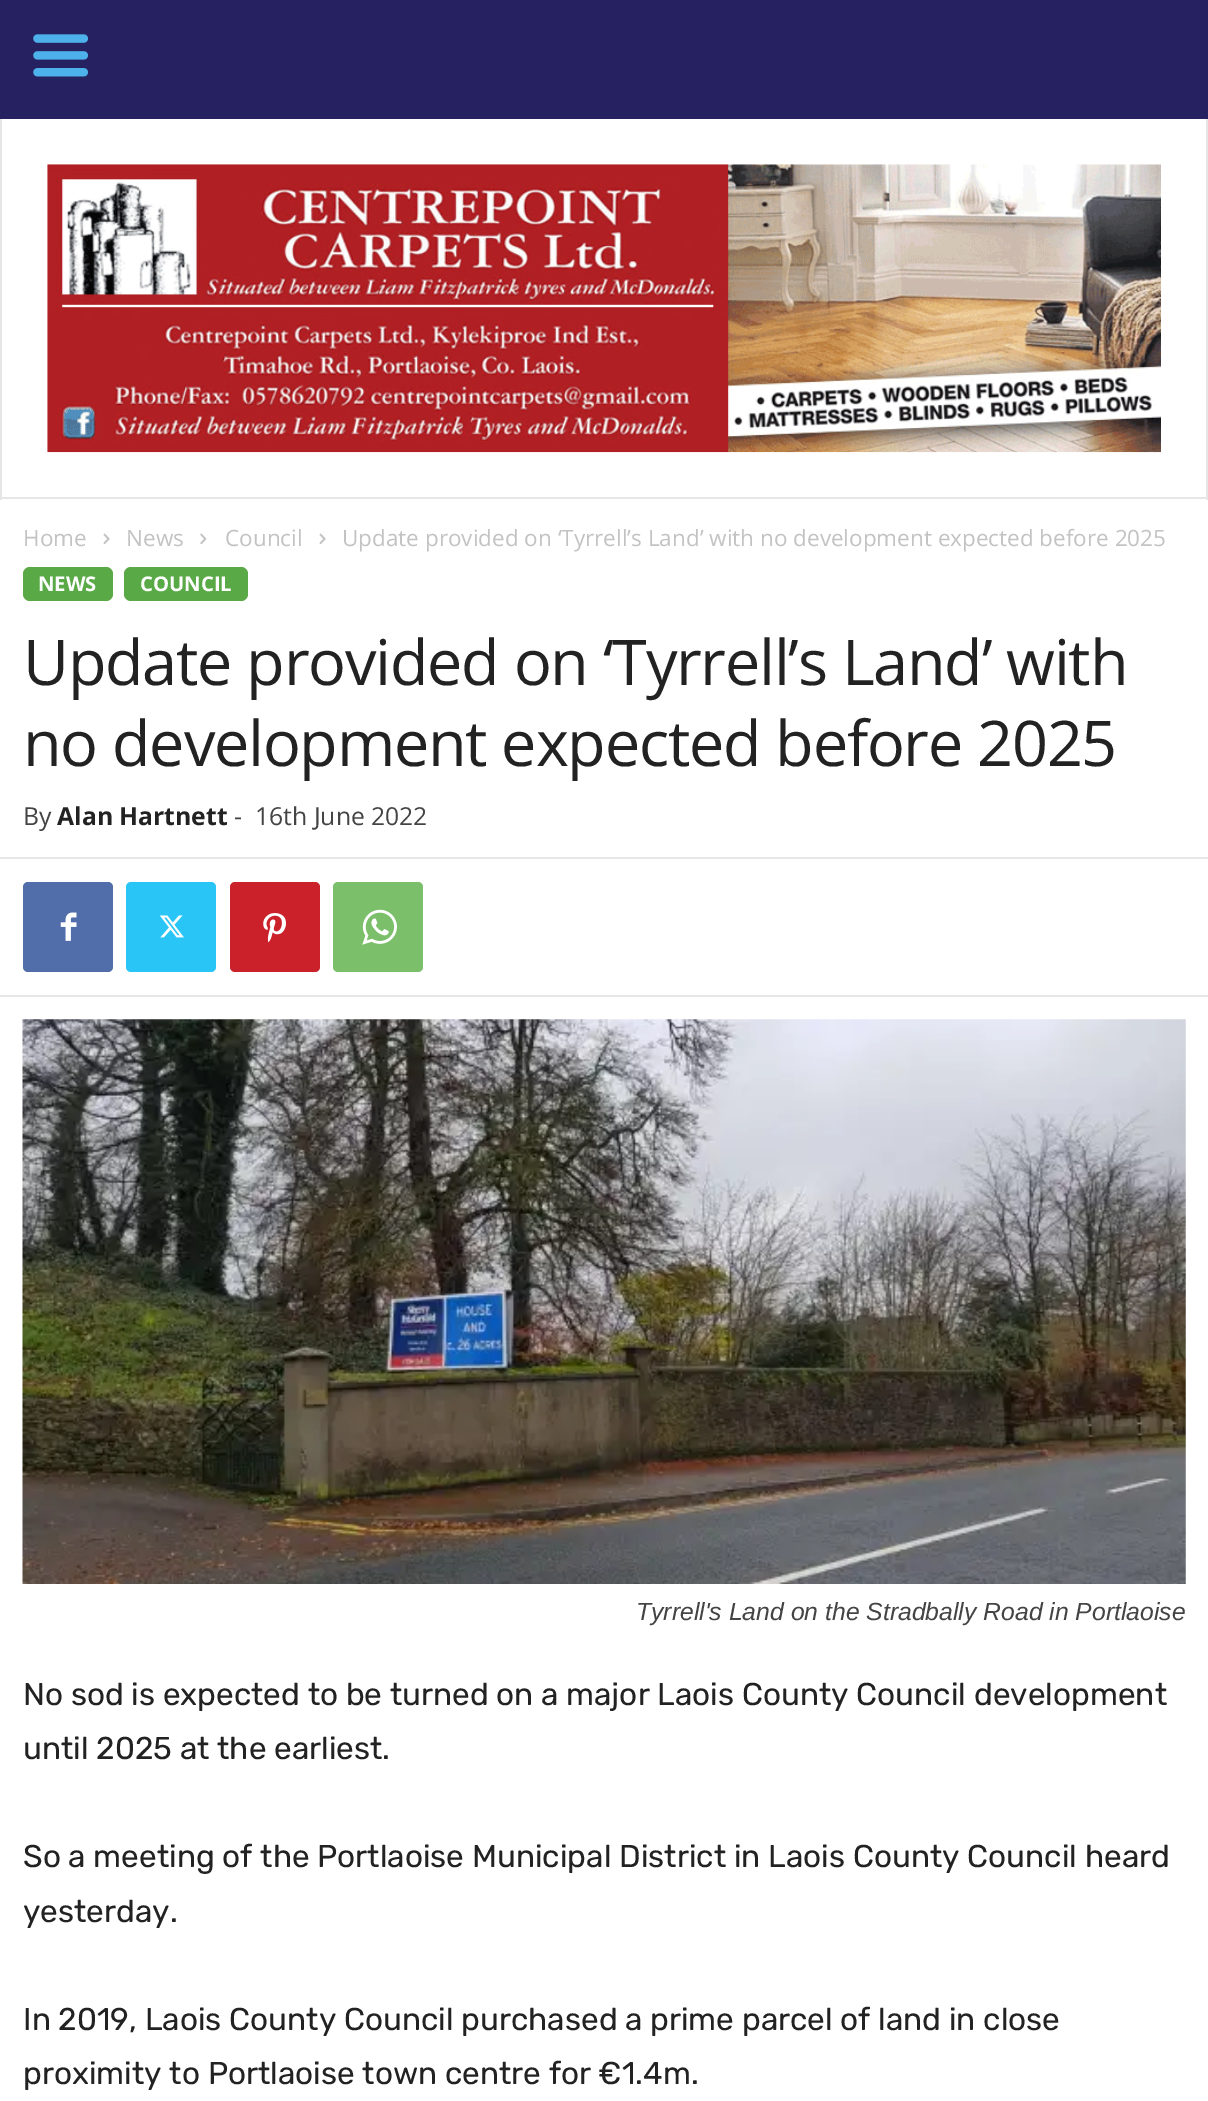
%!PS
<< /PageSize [1208 2101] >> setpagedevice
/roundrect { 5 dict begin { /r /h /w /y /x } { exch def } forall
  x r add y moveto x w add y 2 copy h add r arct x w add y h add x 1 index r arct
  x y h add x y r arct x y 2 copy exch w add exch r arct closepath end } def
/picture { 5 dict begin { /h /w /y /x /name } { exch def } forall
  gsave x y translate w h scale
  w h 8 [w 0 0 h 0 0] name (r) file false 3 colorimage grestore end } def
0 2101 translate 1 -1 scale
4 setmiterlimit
1 setgray
0 0 1208 2101 rectfill
0.149 0.133 0.384 setrgbcolor
0 0 1208 119 rectfill
(img1.rgb) 33 34 55 43 picture
0.902 setgray
1206 119 2 381 rectfill
0 497 1208 2 rectfill
0 119 2 381 rectfill
(img2.rgb) 47 164 1114 289 picture
/OpenSans-Regular [22.5 0 0 -22.5 0 0] selectfont
0.765 setgray
23 546 moveto (Home) show
(img3.rgb) 103 533 7 11 picture
126 546 moveto (News) show
(img4.rgb) 200 533 7 11 picture
225 546 moveto (Council) show
(img3.rgb) 319 533 7 11 picture
342 546 moveto (Update provided on ‘Tyrrell’s Land’ with no development expected before 2025) show
0.349 0.667 0.278 setrgbcolor
23 567 90 34 7 roundrect fill
/OpenSans-Bold [20.25 0 0 -20.25 0 0] selectfont
1 setgray
38 591 moveto (NEWS) show
0.349 0.667 0.278 setrgbcolor
124 567 124 34 7 roundrect fill
1 setgray
140 591 moveto (COUNCIL) show
/OpenSans-Regular [63 0 0 -63 0 0] selectfont
0.133 setgray
23 685 moveto -1.25 0 (Update provided on ‘Tyrrell’s Land’ with) ashow
23 766 moveto -1.25 0 (no development expected before 2025) ashow
/OpenSans-Regular [24.75 0 0 -24.75 0 0] selectfont
0.267 setgray
23 825 moveto (By) show
/OpenSans-Bold [24.75 0 0 -24.75 0 0] selectfont
0.133 setgray
57 825 moveto (Alan Hartnett) show
/OpenSans-Regular [24.75 0 0 -24.75 0 0] selectfont
0.267 setgray
234 825 moveto (-) show
255 825 moveto (16th June 2022) show
0.902 setgray
0 857 1208 2 rectfill
0.318 0.431 0.671 setrgbcolor
23 882 90 90 5 roundrect fill
(img5.rgb) 60 912 17 29 picture
0.161 0.773 0.965 setrgbcolor
126 882 90 90 5 roundrect fill
(img6.rgb) 159 915 25 23 picture
0.792 0.129 0.165 setrgbcolor
230 882 90 90 5 roundrect fill
(img7.rgb) 263 913 23 30 picture
0.482 0.749 0.416 setrgbcolor
333 882 90 90 5 roundrect fill
(img8.rgb) 362 909 35 36 picture
0.902 setgray
0 995 1208 2 rectfill
(img9.rgb) 22 1019 1164 565 picture
/LiberationSans-Italic [24.75 0 0 -24.75 0 0] selectfont
0.267 setgray
636 1620 moveto (Tyrrell's Land on the Stradbally Road in Portlaoise) show
/Rubik-Regular [31.5 0 0 -31.5 0 0] selectfont
0.133 setgray
23 1705 moveto (No sod is expected to be turned on a major Laois County Council development) show
23 1759 moveto (until 2025 at the earliest.) show
23 1867 moveto (So a meeting of the Portlaoise Municipal District in Laois County Council heard) show
23 1922 moveto (yesterday.) show
23 2030 moveto (In 2019, Laois County Council purchased a prime parcel of land in close) show
23 2084 moveto (proximity to Portlaoise town centre for €1.4m.) show
showpage
